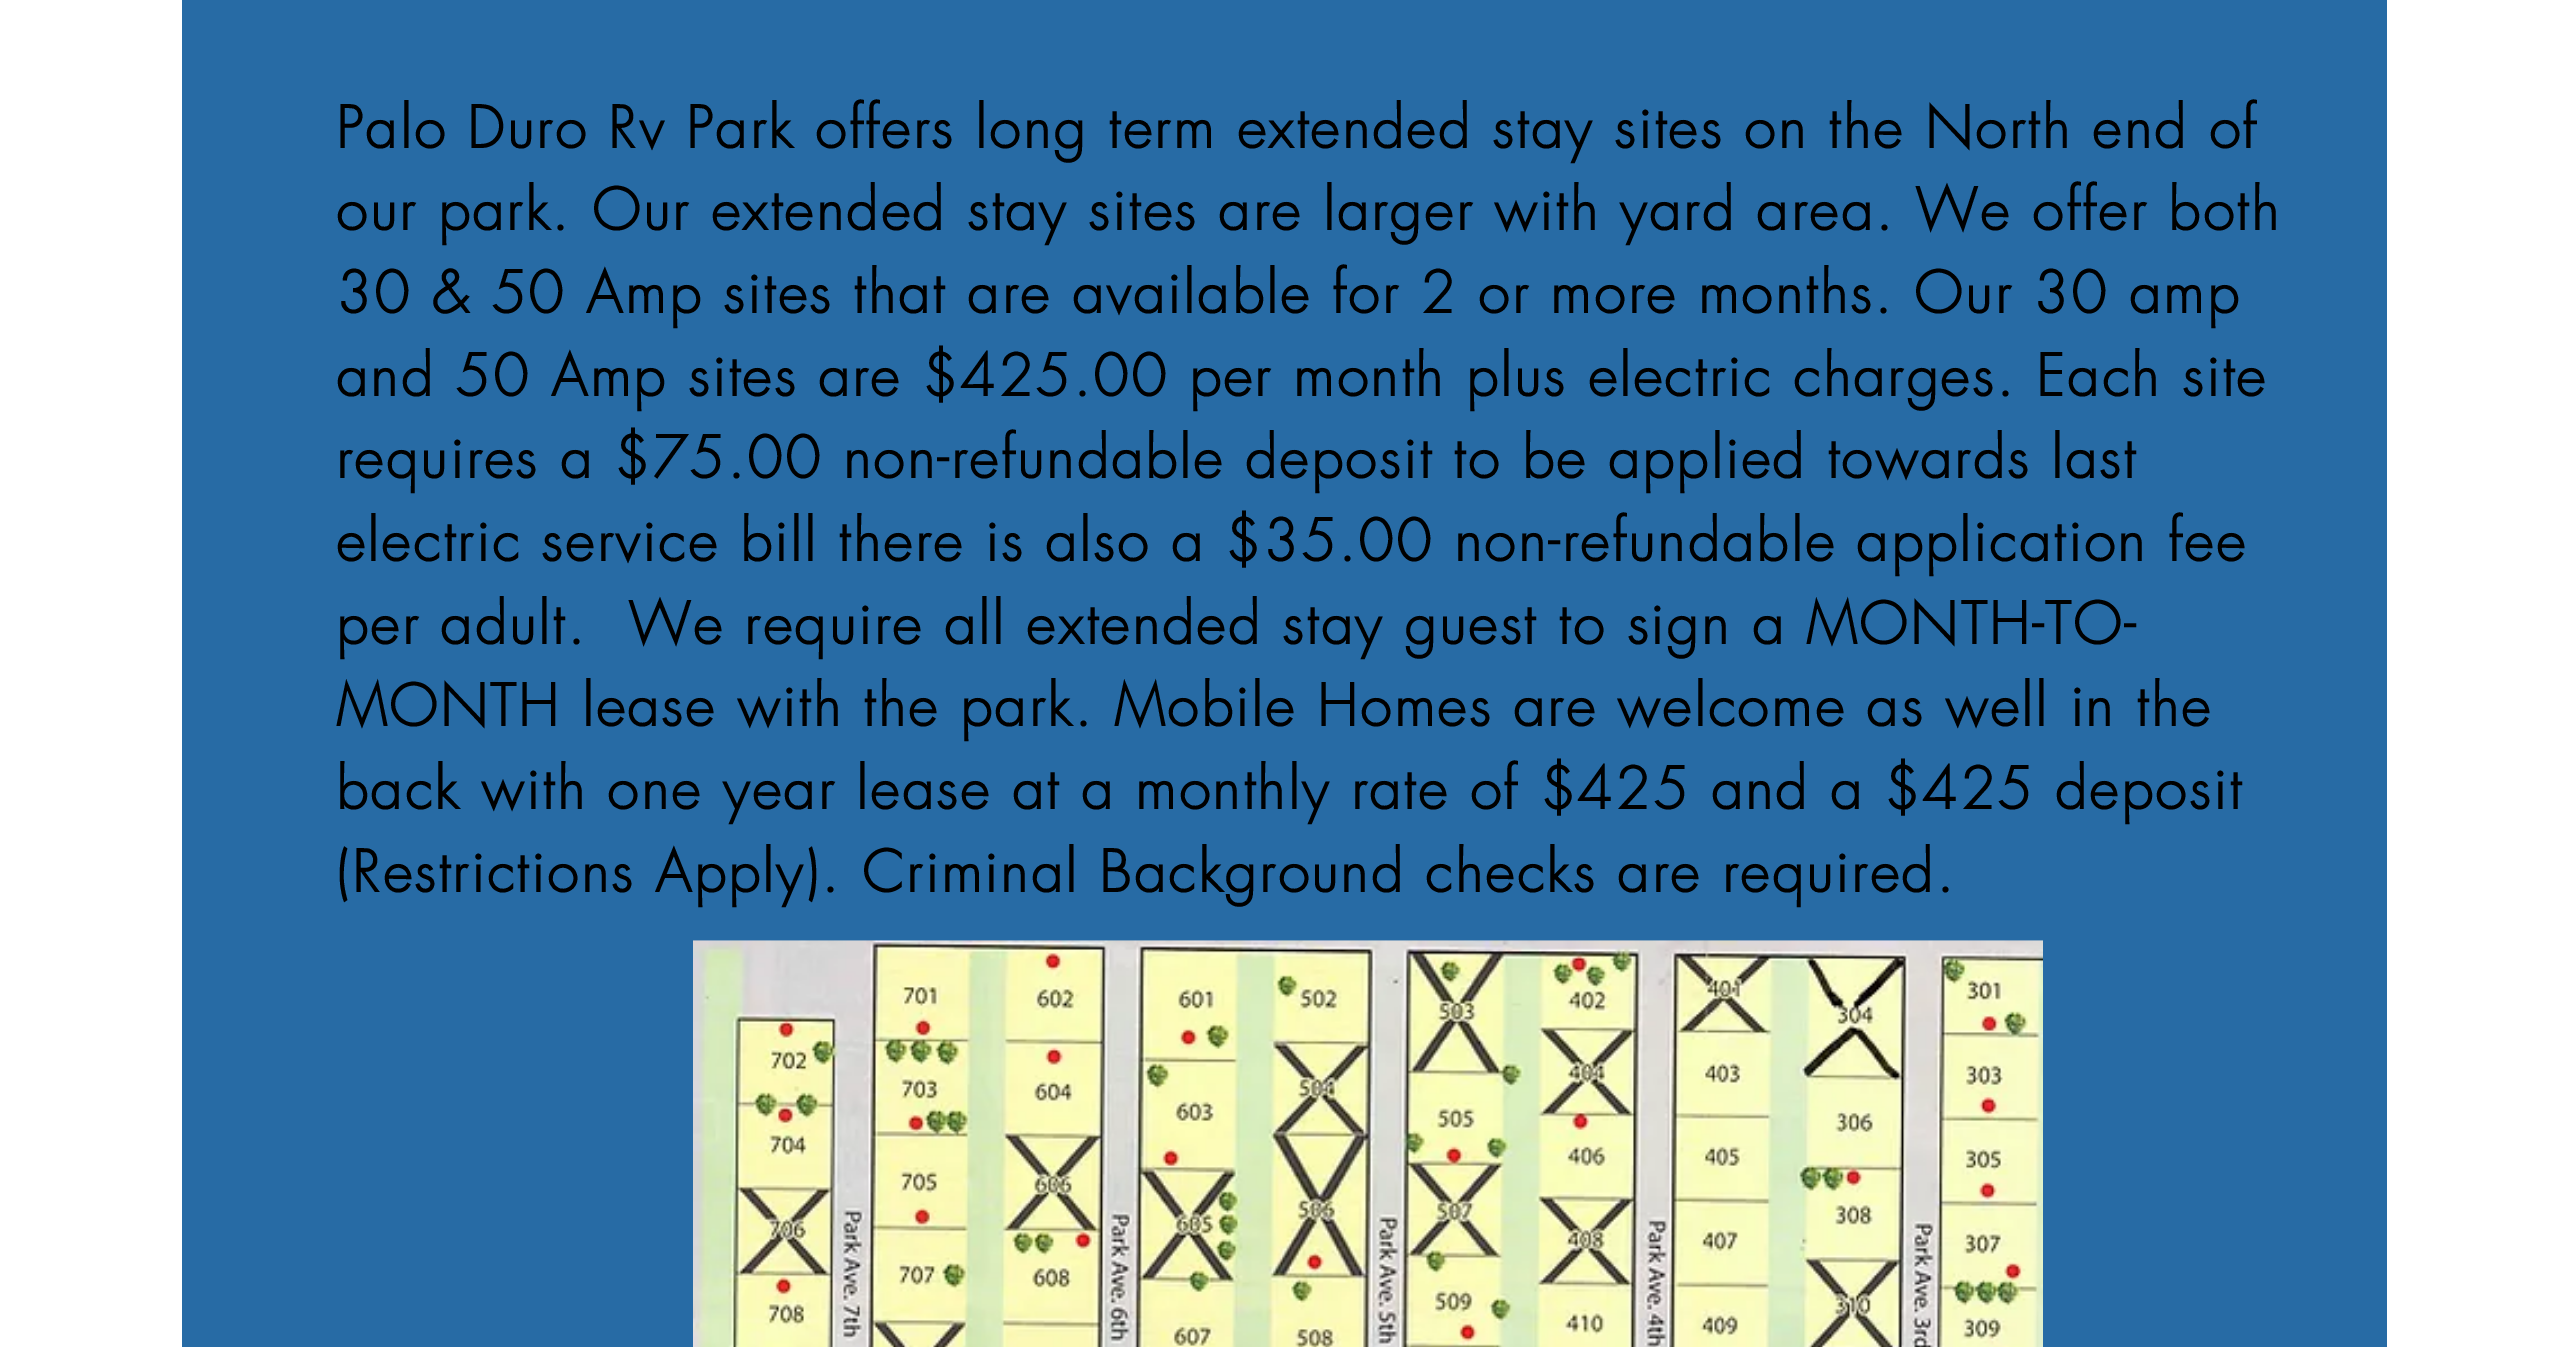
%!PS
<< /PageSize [2566 1347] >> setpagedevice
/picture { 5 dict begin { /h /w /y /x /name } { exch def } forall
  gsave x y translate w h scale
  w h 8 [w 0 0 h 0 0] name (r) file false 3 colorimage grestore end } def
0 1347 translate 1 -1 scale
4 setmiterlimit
1 setgray
0 0 2566 1347 rectfill
0.153 0.42 0.647 setrgbcolor
182 0 2205 1347 rectfill
/futura-Bold [56.25 0 0 -56.25 0 0] selectfont
0 setgray
336 148 moveto 2.8 0 (Palo Duro Rv Park offers long term extended stay sites on the North end of) ashow
336 230 moveto 2.8 0 (our park. Our extended stay sites are larger with yard area. We offer both) ashow
336 313 moveto 2.8 0 (30 & 50 Amp sites that are available for 2 or more months. Our 30 amp) ashow
336 396 moveto 2.8 0 (and 50 Amp sites are $425.00 per month plus electric charges. Each site) ashow
336 478 moveto 2.8 0 (requires a $75.00 non-refundable deposit to be applied towards last) ashow
336 561 moveto 2.8 0 (electric service bill there is also a $35.00 non-refundable application fee) ashow
336 644 moveto 2.8 0 (per adult.  We require all extended stay guest to sign a MONTH-TO-) ashow
336 726 moveto 2.8 0 (MONTH lease with the park. Mobile Homes are welcome as well in the) ashow
336 809 moveto 2.8 0 (back with one year lease at a monthly rate of $425 and a $425 deposit) ashow
336 892 moveto 2.8 0 (\(Restrictions Apply\). Criminal Background checks are required.) ashow
(img1.rgb) 693 940 1350 407 picture
showpage
